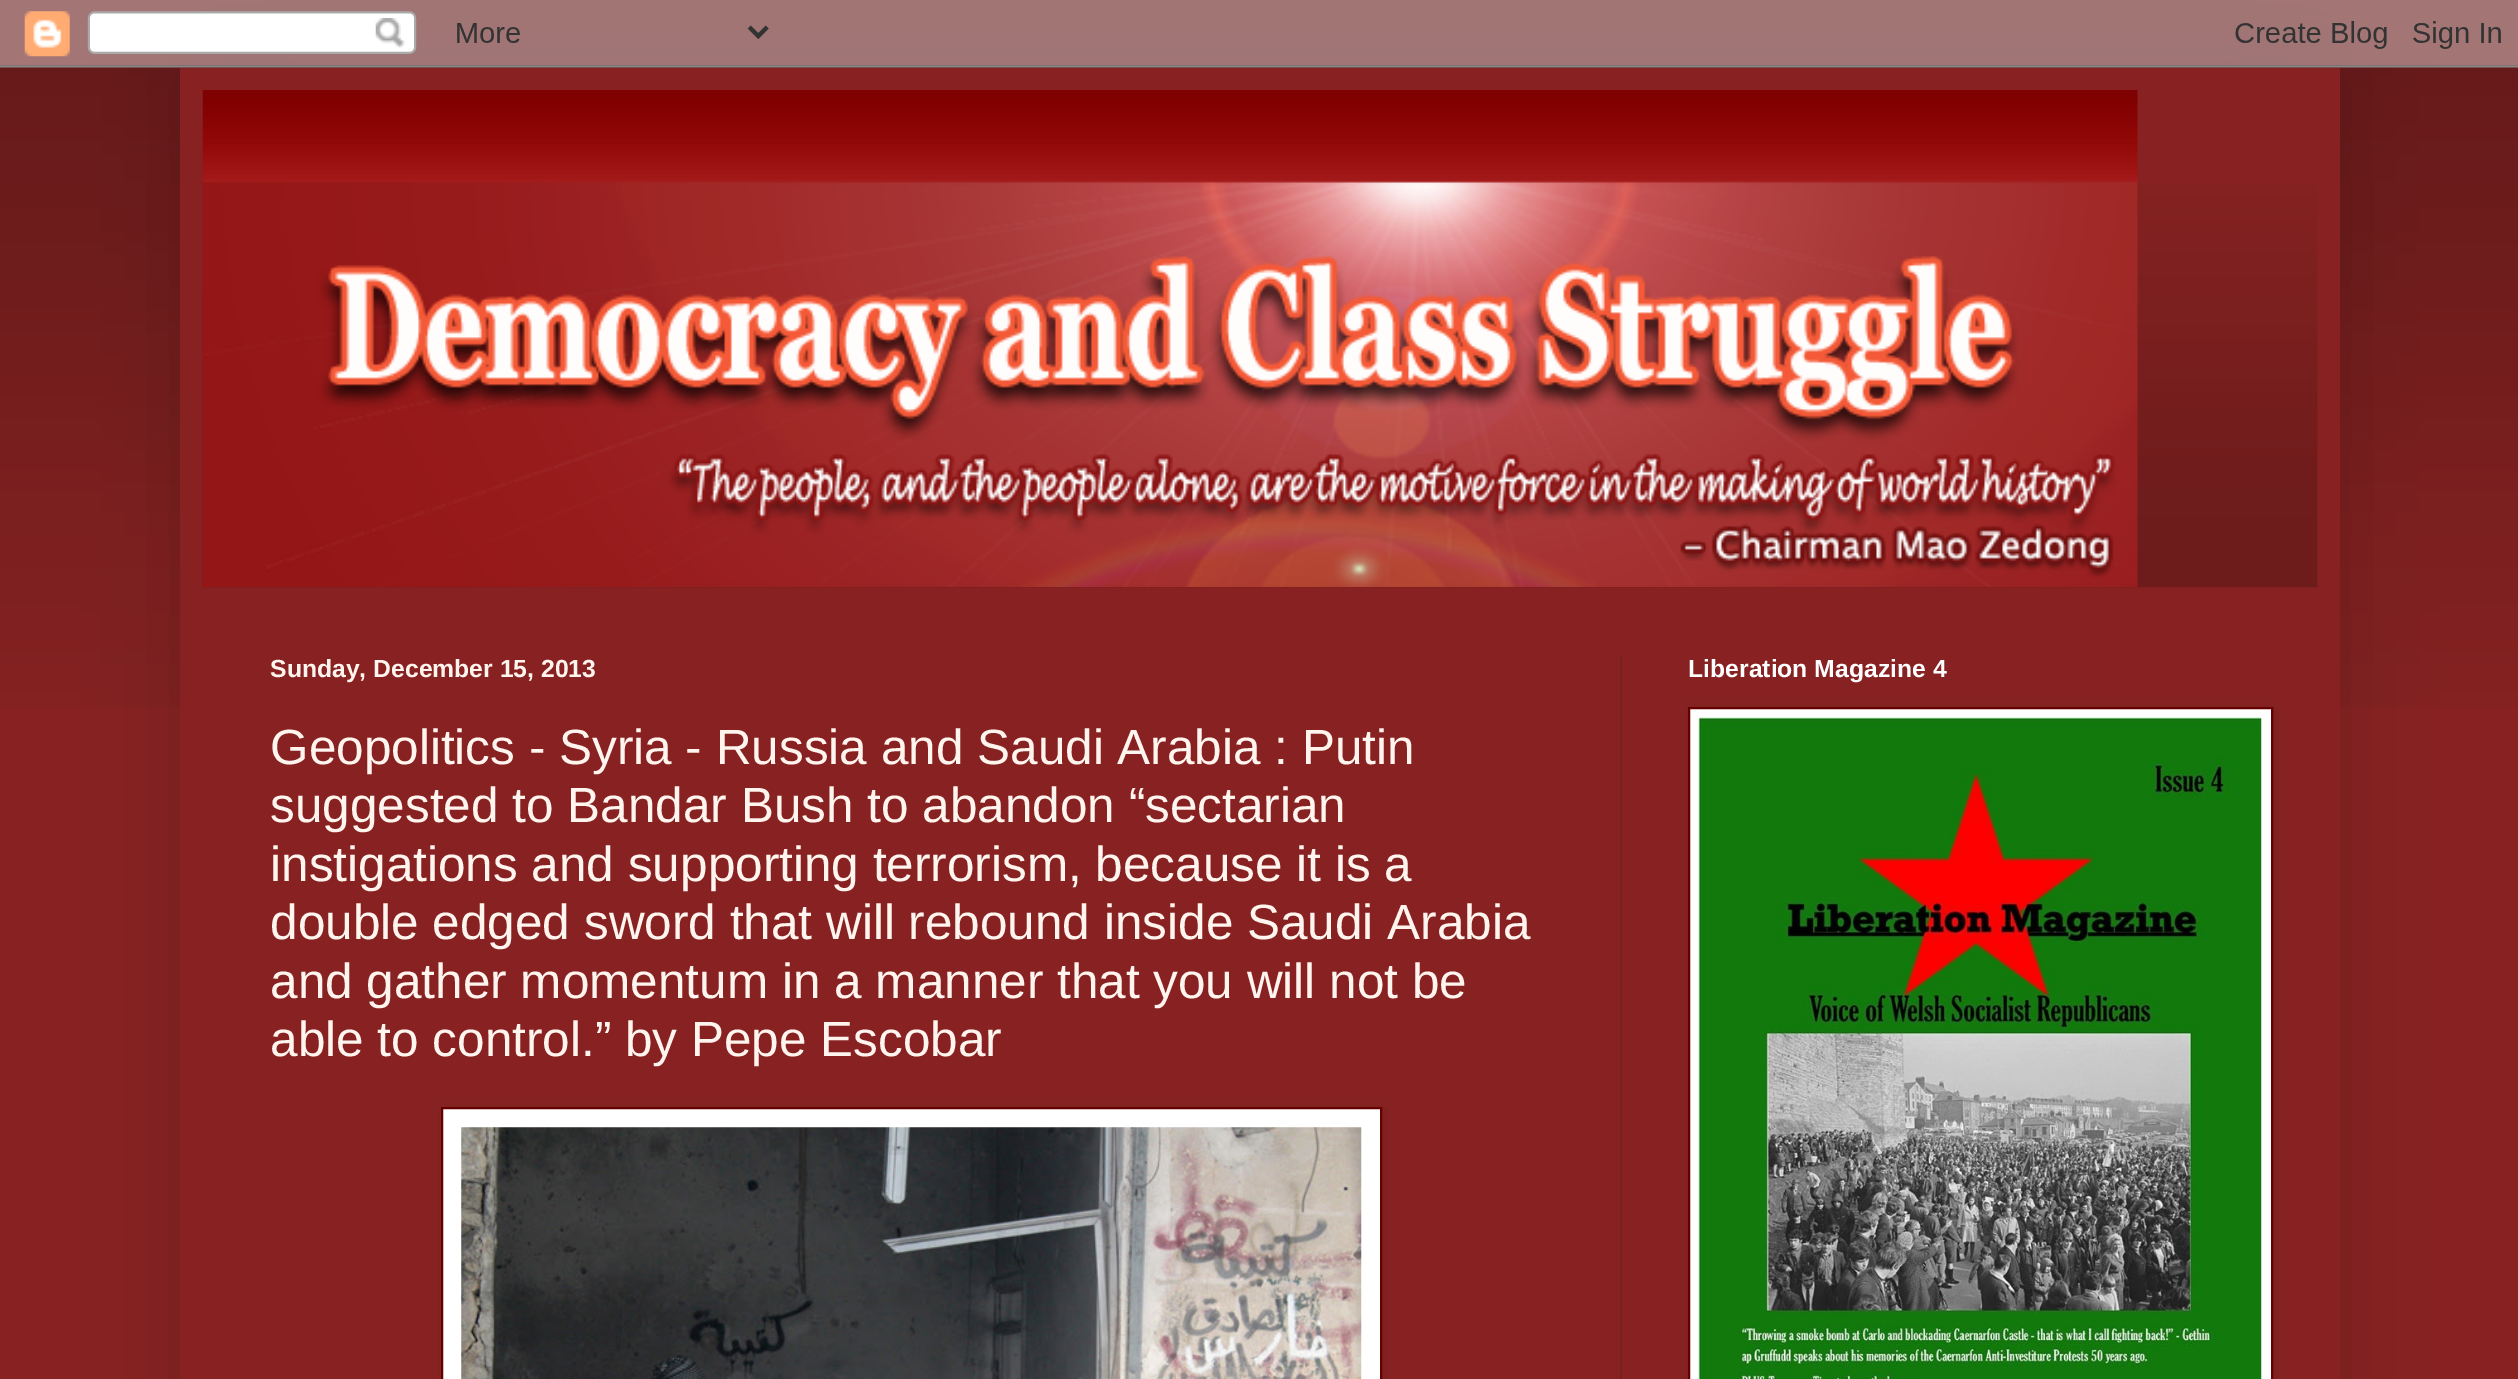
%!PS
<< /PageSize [2518 1379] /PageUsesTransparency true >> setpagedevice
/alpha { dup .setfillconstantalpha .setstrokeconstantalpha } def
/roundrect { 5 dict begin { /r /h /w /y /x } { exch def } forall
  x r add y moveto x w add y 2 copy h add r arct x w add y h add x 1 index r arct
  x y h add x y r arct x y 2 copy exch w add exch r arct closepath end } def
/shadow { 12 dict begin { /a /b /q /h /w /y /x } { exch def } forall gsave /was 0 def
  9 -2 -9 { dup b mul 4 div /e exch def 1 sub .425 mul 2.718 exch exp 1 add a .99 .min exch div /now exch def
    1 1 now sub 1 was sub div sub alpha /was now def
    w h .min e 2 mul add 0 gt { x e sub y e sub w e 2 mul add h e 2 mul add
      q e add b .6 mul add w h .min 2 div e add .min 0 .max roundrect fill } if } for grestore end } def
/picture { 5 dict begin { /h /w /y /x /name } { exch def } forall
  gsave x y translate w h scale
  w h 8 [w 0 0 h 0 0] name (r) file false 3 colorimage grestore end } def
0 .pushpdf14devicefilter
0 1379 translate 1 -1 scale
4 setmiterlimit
0.533 0.133 0.133 setrgbcolor
0 0 2518 1379 rectfill
(img1.rgb) 0 0 2518 707 picture
0 setgray
180 68 2160 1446 0 45 0.15 shadow
(img2.rgb) 0 0 2518 68 picture
0.533 0.133 0.133 setrgbcolor
180 68 2160 1311 rectfill
(img3.rgb) 202 184 2116 404 picture
(img4.rgb) 202 90 1936 497 picture
0.467 0.133 0.133 setrgbcolor
1620 655 2 724 rectfill
/LiberationSans-Bold [24.75 0 0 -24.75 0 0] selectfont
1 0.961 0.933 setrgbcolor
270 677 moveto (Sunday, December 15, 2013) show
/LiberationSans-Regular [49.5 0 0 -49.5 0 0] selectfont
270 764 moveto (Geopolitics - Syria - Russia and Saudi Arabia : Putin) show
270 822 moveto (suggested to Bandar Bush to abandon “sectarian) show
270 881 moveto (instigations and supporting terrorism, because it is a) show
270 939 moveto (double edged sword that will rebound inside Saudi Arabia) show
270 998 moveto (and gather momentum in a manner that you will not be) show
270 1056 moveto (able to control.” by Pepe Escobar) show
0 setgray
443 1109 941 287 0 5.5 0.1 shadow
1 setgray
newpath 442 1108 moveto 1381 1108 lineto 1381 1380 lineto 442 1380 lineto closepath gsave fill grestore
0.4 0 0 setrgbcolor
2 setlinewidth
stroke
(img5.rgb) 461 1127 901 252 picture
/LiberationSans-Bold [24.75 0 0 -24.75 0 0] selectfont
1 setgray
1688 677 moveto (Liberation Magazine 4) show
0 setgray
1690 709 585 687 0 5.5 0.1 shadow
1 setgray
newpath 1689 708 moveto 2272 708 lineto 2272 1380 lineto 1689 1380 lineto closepath gsave fill grestore
0.4 0 0 setrgbcolor
stroke
(img6.rgb) 1698 717 564 662 picture
.poppdf14devicefilter showpage
